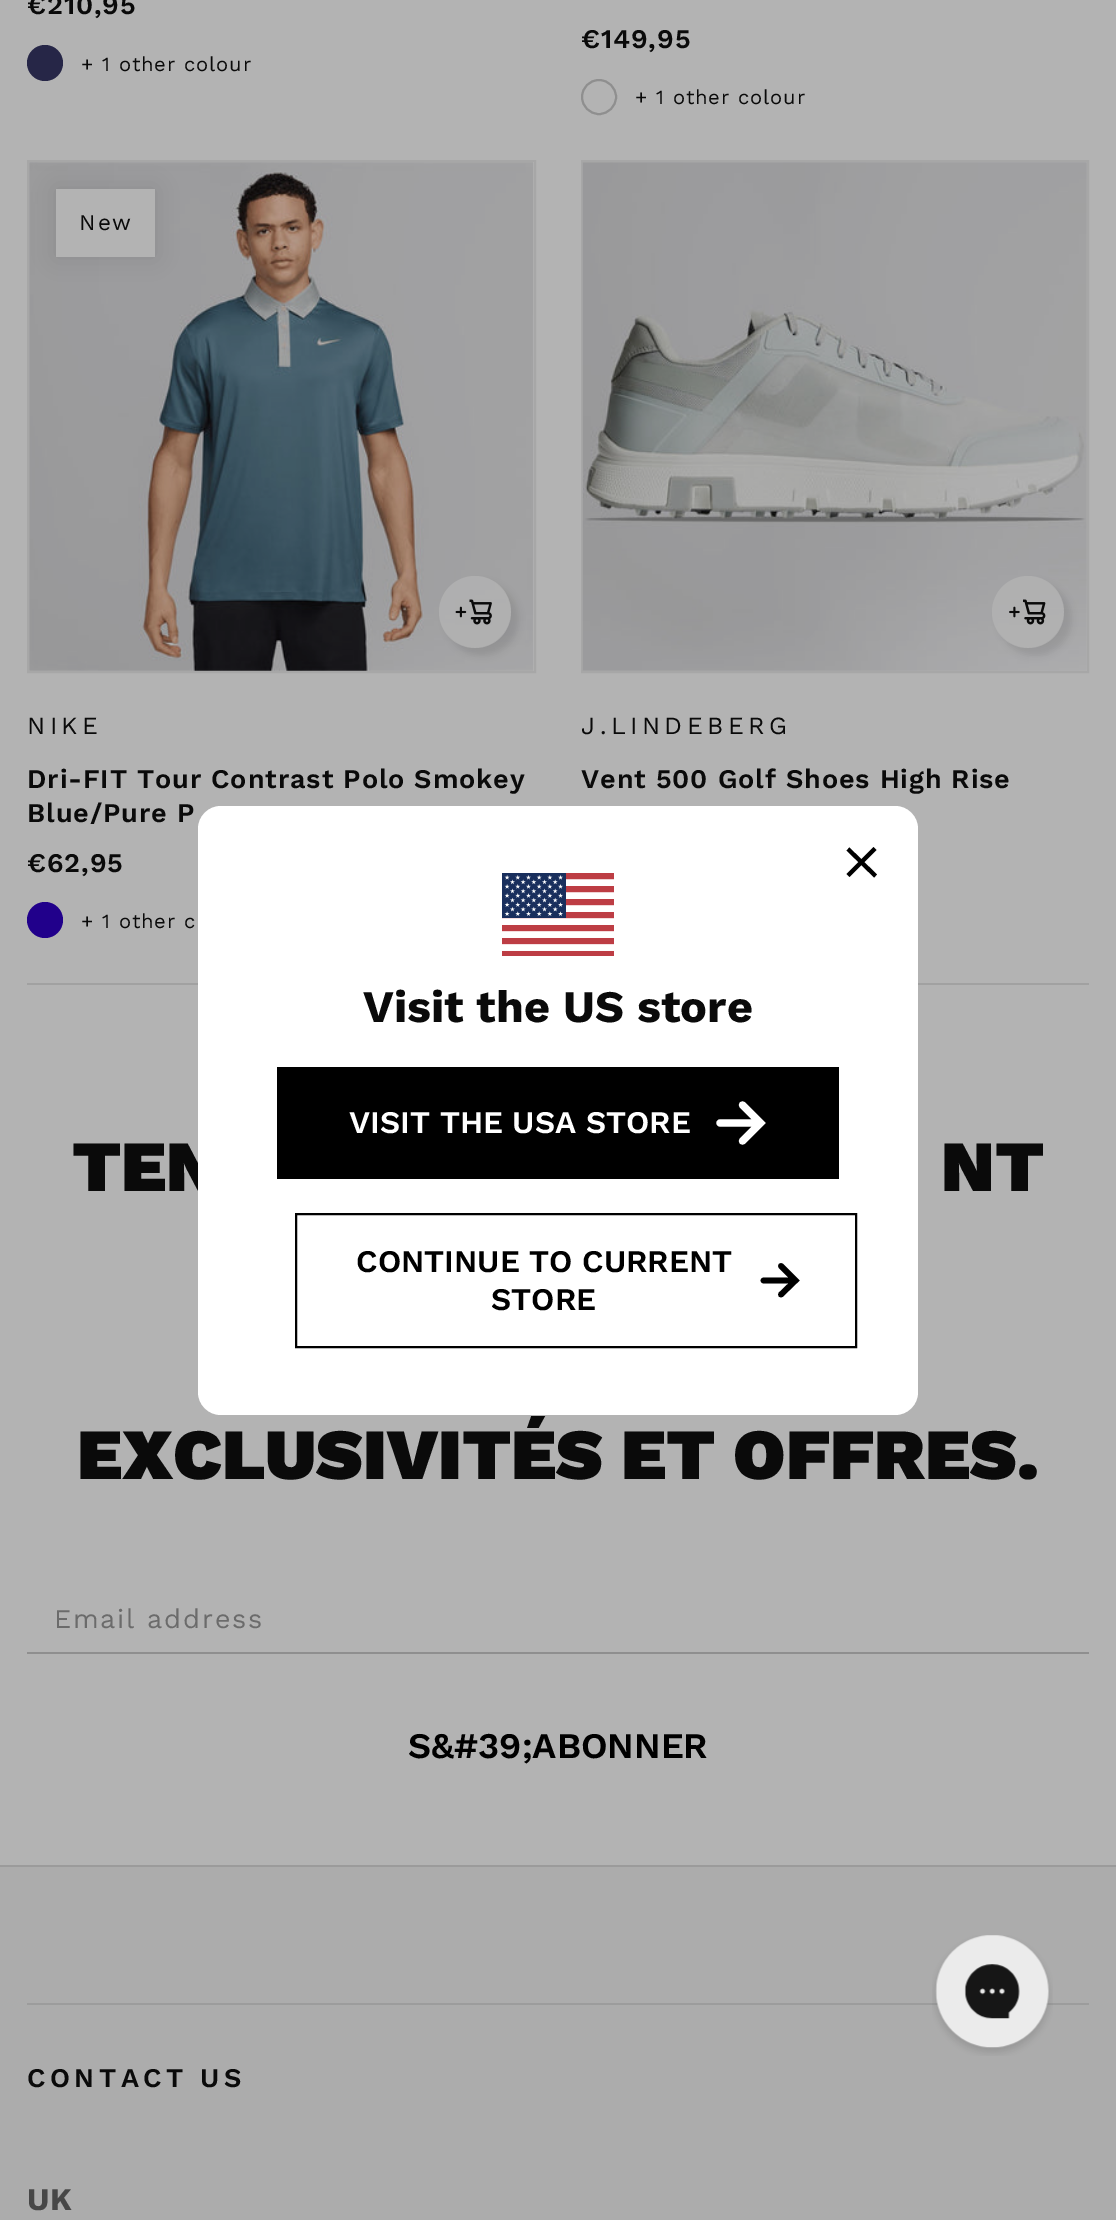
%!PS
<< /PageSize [1116 2220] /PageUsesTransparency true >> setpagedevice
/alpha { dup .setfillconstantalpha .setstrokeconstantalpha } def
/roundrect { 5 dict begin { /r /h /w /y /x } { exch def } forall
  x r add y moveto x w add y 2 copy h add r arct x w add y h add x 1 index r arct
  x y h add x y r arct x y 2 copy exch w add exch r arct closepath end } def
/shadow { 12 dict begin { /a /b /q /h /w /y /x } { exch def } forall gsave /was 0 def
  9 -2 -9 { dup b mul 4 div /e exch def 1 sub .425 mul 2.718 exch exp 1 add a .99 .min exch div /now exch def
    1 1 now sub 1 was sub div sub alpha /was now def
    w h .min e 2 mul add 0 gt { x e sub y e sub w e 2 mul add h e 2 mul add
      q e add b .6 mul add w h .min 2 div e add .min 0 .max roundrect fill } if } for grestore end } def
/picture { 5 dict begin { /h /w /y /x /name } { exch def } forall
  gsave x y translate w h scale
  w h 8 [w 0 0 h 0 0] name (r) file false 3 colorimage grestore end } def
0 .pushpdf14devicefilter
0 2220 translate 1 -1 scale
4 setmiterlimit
0.702 setgray
0 0 1116 2220 rectfill
/WorkSans-SemiBold [27 0 0 -27 0 0] selectfont
0.039 setgray
27 14 moveto 0.9 0 (€210,95) ashow
0.149 0.149 0.278 setrgbcolor
newpath 45 63 18 0 360 arc closepath fill
/WorkSans-Regular [20.25 0 0 -20.25 0 0] selectfont
0.039 setgray
81 71 moveto 0.9 0 (+ 1 other colour) ashow
/WorkSans-SemiBold [27 0 0 -27 0 0] selectfont
581 48 moveto 0.9 0 (€149,95) ashow
0.561 setgray
2 setlinewidth
newpath 599 97 17 0 360 arc closepath stroke
/WorkSans-Regular [20.25 0 0 -20.25 0 0] selectfont
0.039 setgray
635 104 moveto 0.9 0 (+ 1 other colour) ashow
0.655 setgray
28 161 507 511 rectstroke
(img1.rgb) 29 162 505 509 picture
0 setgray
56 189 99 68 0 11 0.1 shadow
0.702 setgray
56 189 99 68 rectfill
/WorkSans-Regular [22.5 0 0 -22.5 0 0] selectfont
0.039 setgray
79 230 moveto 2 0 (New) ashow
gsave
newpath 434 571 moveto 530 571 lineto 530 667 lineto 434 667 lineto closepath 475 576 moveto 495 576 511 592 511 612 curveto 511 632 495 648 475 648 curveto 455 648 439 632 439 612 curveto 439 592 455 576 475 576 curveto closepath eoclip newpath
0 setgray
446 583 72 72 36 3.5 0.1 shadow
grestore
0.8 alpha
0.702 setgray
newpath 475 612 36 0 360 arc closepath fill
1 alpha
(img2.rgb) 455 599 37 26 picture
/WorkSans-Regular [24.75 0 0 -24.75 0 0] selectfont
0.039 setgray
27 734 moveto 4.5 0 (NIKE) ashow
/WorkSans-SemiBold [27 0 0 -27 0 0] selectfont
27 788 moveto 0.9 0 (Dri-FIT Tour Contrast Polo Smokey) ashow
27 822 moveto 0.9 0 (Blue/Pure P) ashow
27 872 moveto 0.9 0 (€62,95) ashow
0.129 0 0.545 setrgbcolor
newpath 45 920 18 0 360 arc closepath fill
/WorkSans-Regular [20.25 0 0 -20.25 0 0] selectfont
0.039 setgray
81 928 moveto 0.9 0 (+ 1 other c) ashow
0.655 setgray
582 161 506 511 rectstroke
(img3.rgb) 582 162 505 509 picture
gsave
newpath 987 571 moveto 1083 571 lineto 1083 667 lineto 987 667 lineto closepath 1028 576 moveto 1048 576 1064 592 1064 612 curveto 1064 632 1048 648 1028 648 curveto 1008 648 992 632 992 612 curveto 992 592 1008 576 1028 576 curveto closepath eoclip newpath
0 setgray
999 583 72 72 36 3.5 0.1 shadow
grestore
0.8 alpha
0.702 setgray
newpath 1028 612 36 0 360 arc closepath fill
1 alpha
(img4.rgb) 1009 599 37 26 picture
/WorkSans-Regular [24.75 0 0 -24.75 0 0] selectfont
0.039 setgray
581 734 moveto 4.5 0 (J.LINDEBERG) ashow
/WorkSans-SemiBold [27 0 0 -27 0 0] selectfont
581 788 moveto 0.9 0 (Vent 500 Golf Shoes High Rise) ashow
0.631 setgray
27 983 1062 2 rectfill
/WorkSans-Black [72 0 0 -72 0 0] selectfont
0.039 setgray
72 1191 moveto (TEN) show
1 setgray
198 806 720 609 23 roundrect fill
0 setgray
4.1 setlinewidth
newpath 848 875.5 moveto 875 848.5 lineto 875.5 876 moveto 848 849 lineto stroke
(img5.rgb) 502 873 112 83 picture
/WorkSans-Bold [45 0 0 -45 0 0] selectfont
0.039 setgray
363 1022 moveto (Visit the US store) show
0 setgray
277 1067 562 112 rectfill
/WorkSans-SemiBold [31.5 0 0 -31.5 0 0] selectfont
1 setgray
349 1133 moveto (VISIT THE USA STORE) show
7.2 setlinewidth
1 setlinecap
newpath 742.5 1141 moveto 760.5 1123 lineto 742.5 1105 lineto 760.5 1123 moveto 720 1123 lineto stroke
0 setgray
2 setlinewidth
0 setlinecap
296 1214 560 133 rectstroke
356 1272 moveto (CONTINUE TO CURRENT) show
5.7 setlinewidth
1 setlinecap
newpath 781 1294.5 moveto 795.5 1280.5 lineto 781 1266 lineto 795.5 1280.5 moveto 763.5 1280.5 lineto stroke
491 1310 moveto (STORE) show
/WorkSans-Black [72 0 0 -72 0 0] selectfont
0.039 setgray
941 1191 moveto (NT) show
77 1479 moveto (EXCLUSIVITÉS ET OFFRES.) show
0.561 setgray
27 1652 1062 2 rectfill
/WorkSans-Regular [27 0 0 -27 0 0] selectfont
0.42 setgray
54 1628 moveto 1.75 0 (Email address) ashow
/WorkSans-SemiBold [36 0 0 -36 0 0] selectfont
0 setgray
408 1758 moveto (S&#39;ABONNER) show
0.675 setgray
0 1867 1116 353 rectfill
0.608 setgray
0 1865 1116 2 rectfill
0.612 setgray
27 2003 1062 2 rectfill
/WorkSans-SemiBold [27 0 0 -27 0 0] selectfont
0.039 setgray
27 2087 moveto 4.5 0 (CONTACT US) ashow
/WorkSans-Bold [31.5 0 0 -31.5 0 0] selectfont
0.278 setgray
27 2210 moveto 0.9 0 (UK) ashow
(img6.rgb) 932 1935 121 121 picture
.poppdf14devicefilter showpage
